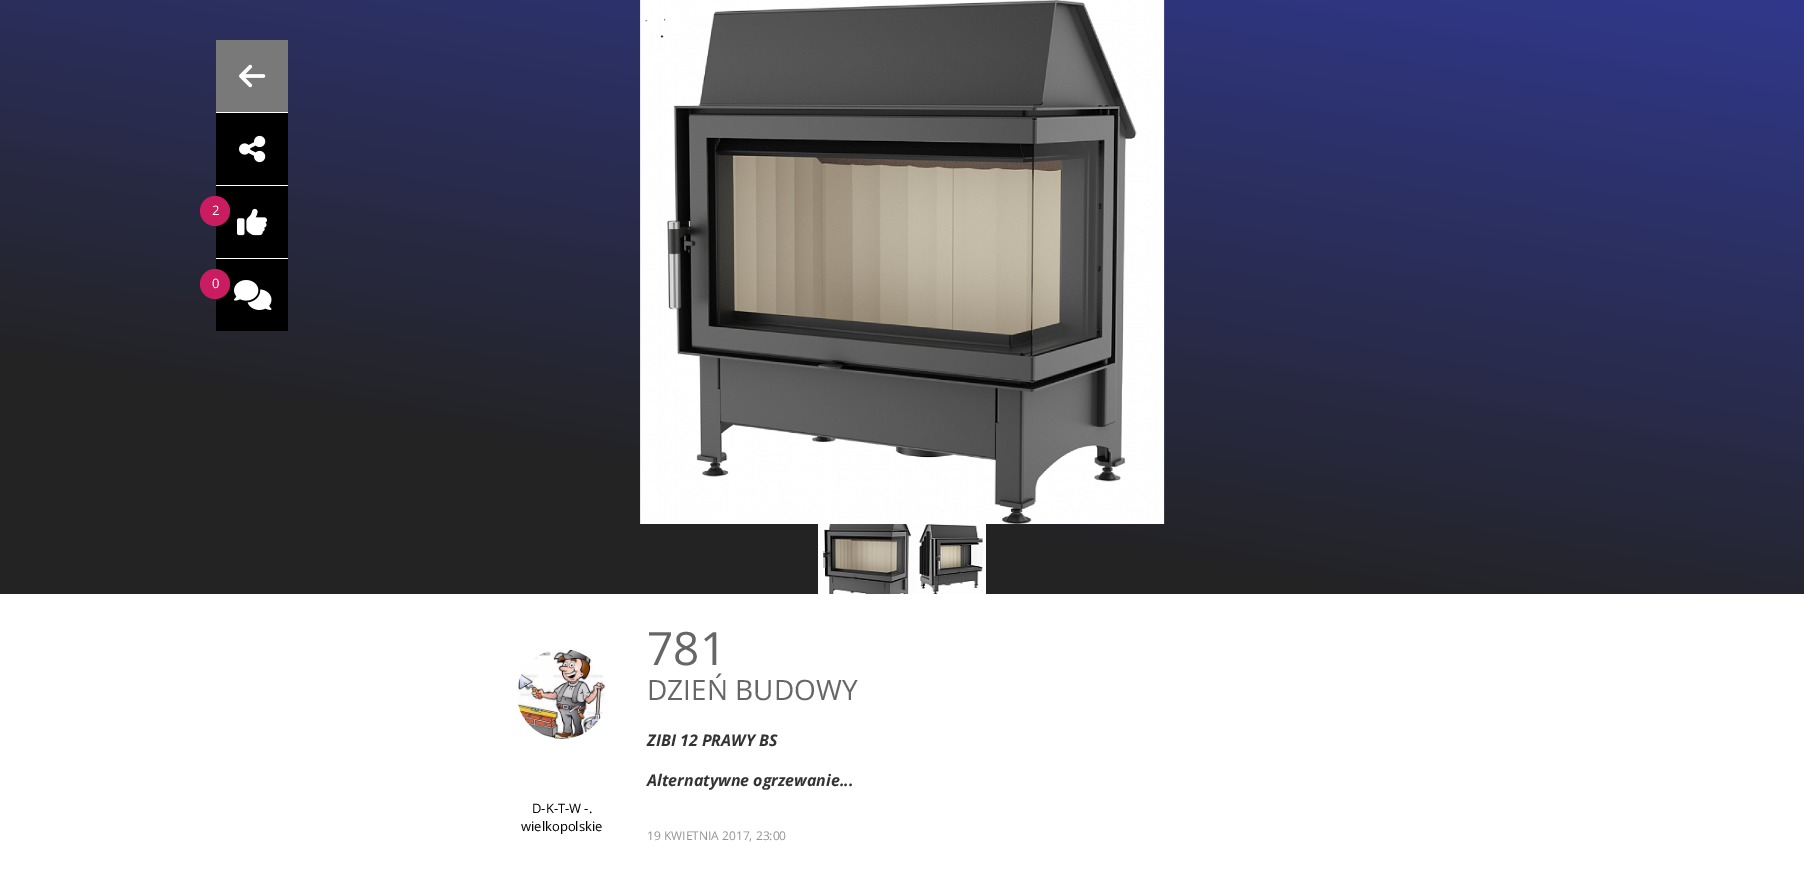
%!PS
<< /PageSize [1804 873] >> setpagedevice
/picture { 5 dict begin { /h /w /y /x /name } { exch def } forall
  gsave x y translate w h scale
  w h 8 [w 0 0 h 0 0] name (r) file false 3 colorimage grestore end } def
0 873 translate 1 -1 scale
4 setmiterlimit
1 setgray
0 0 1804 873 rectfill
gsave newpath 0 0 moveto 1804 0 lineto 1804 594 lineto 0 594 lineto closepath clip newpath
<< /ShadingType 2 /ColorSpace /DeviceRGB /Coords [824 739 980 -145] /Extend [true true] /Function << /FunctionType 3 /Domain [0 1] /Functions [<< /FunctionType 2 /Domain [0 1] /C0 [0.137 0.137 0.137] /C1 [0.137 0.137 0.137] /N 1 >> << /FunctionType 2 /Domain [0 1] /C0 [0.137 0.137 0.137] /C1 [0.192 0.22 0.549] /N 1 >>] /Bounds [0.25] /Encode [0 1 0 1] >> >> shfill grestore
(img1.rgb) 640 0 525 524 picture
(img2.rgb) 818 524 98 70 picture
(img3.rgb) 916 524 70 70 picture
216 112 72 147 rectfill
0.475 setgray
216 40 72 72 rectfill
(img4.rgb) 239 64 27 24 picture
0 setgray
216 113 72 72 rectfill
(img5.rgb) 239 135 27 28 picture
216 186 72 72 rectfill
0.792 0.114 0.38 setrgbcolor
newpath 215 211 15 0 360 arc closepath fill
/OpenSans-Regular [13 0 0 -13 0 0] selectfont
1 setgray
212 215 moveto (2) show
(img6.rgb) 237 208 30 28 picture
0 setgray
216 259 72 72 rectfill
0.792 0.114 0.38 setrgbcolor
newpath 215 284 15 0 360 arc closepath fill
1 setgray
212 288 moveto (0) show
(img7.rgb) 234 280 38 30 picture
(img8.rgb) 517 649 89 90 picture
0 setgray
532 813 moveto (D-K-T-W -.) show
521 831 moveto (wielkopolskie) show
/OpenSans-Regular [46 0 0 -46 0 0] selectfont
0.4 setgray
647 665 moveto (781) show
/OpenSans-Regular [28 0 0 -28 0 0] selectfont
647 700 moveto (DZIEŃ BUDOWY) show
/OpenSans-BoldItalic [16 0 0 -16 0 0] selectfont
0.2 setgray
647 746 moveto (ZIBI 12 PRAWY BS) show
647 786 moveto (Alternatywne ogrzewanie...) show
/OpenSans-Regular [12 0 0 -12 0 0] selectfont
0.58 setgray
647 840 moveto (19 KWIETNIA 2017, 23:00) show
showpage
